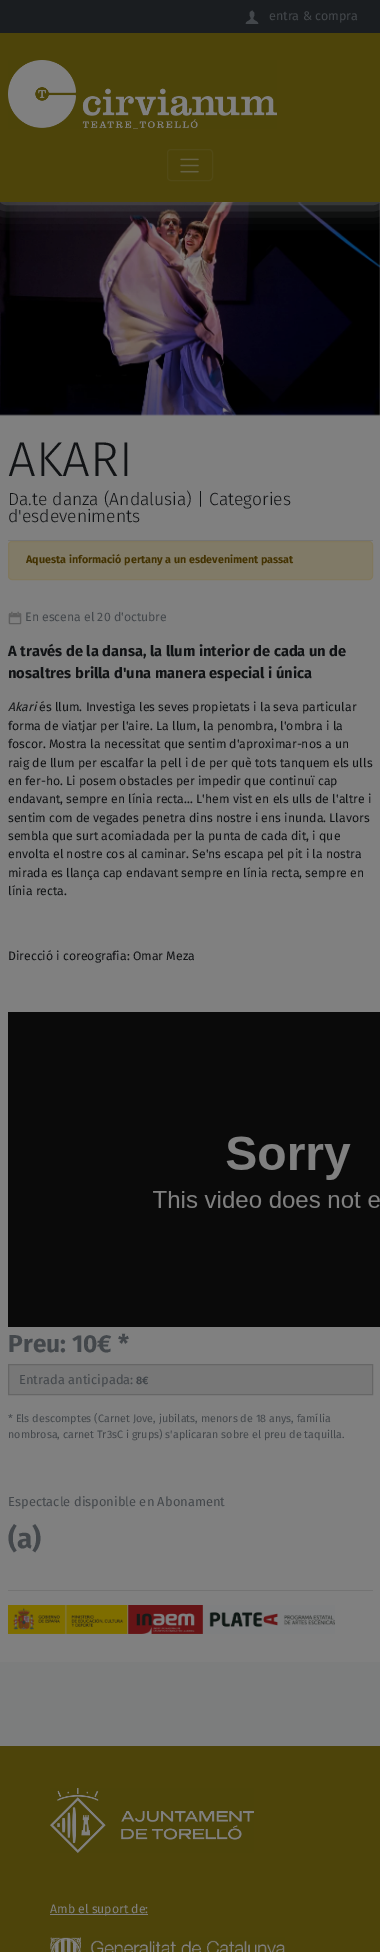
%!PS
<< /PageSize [380 1952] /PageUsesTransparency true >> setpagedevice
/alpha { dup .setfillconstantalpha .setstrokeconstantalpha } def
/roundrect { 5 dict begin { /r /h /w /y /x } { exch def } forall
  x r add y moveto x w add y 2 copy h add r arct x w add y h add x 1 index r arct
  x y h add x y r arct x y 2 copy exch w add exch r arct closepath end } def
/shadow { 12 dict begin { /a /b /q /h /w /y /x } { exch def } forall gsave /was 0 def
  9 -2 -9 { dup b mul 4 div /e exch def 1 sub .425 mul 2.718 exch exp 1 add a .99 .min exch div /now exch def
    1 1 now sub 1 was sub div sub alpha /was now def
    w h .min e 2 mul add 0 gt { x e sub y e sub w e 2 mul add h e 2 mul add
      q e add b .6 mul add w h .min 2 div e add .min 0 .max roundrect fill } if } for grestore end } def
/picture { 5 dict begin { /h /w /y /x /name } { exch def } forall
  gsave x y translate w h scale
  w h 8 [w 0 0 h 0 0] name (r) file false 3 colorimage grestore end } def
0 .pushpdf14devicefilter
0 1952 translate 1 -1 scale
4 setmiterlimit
0.502 setgray
0 0 380 1952 rectfill
(img4.rgb) 0 202 380 214 picture
0.435 0.443 0.451 setrgbcolor
0 0 380 202 0 12.5 1 shadow
0.102 0.114 0.125 setrgbcolor
0 0 380 33 rectfill
(img1.rgb) 245 10 14 14 picture
/FiraSans-Regular [12.5 0 0 -12.5 0 0] selectfont
0.263 0.278 0.294 setrgbcolor
269 20 moveto (entra & compra) show
0.302 0.267 0.039 setrgbcolor
0 33 380 169 rectfill
(img2.rgb) 8 60 269 69 picture
0.322 0.29 0.086 setrgbcolor
167.5 149.5 45 31 3.5 roundrect stroke
(img3.rgb) 180 158 19 15 picture
/FiraSans-Light [49 0 0 -49 0 0] selectfont
0.067 0.075 0.082 setrgbcolor
8 476 moveto (AKARI) show
/FiraSans-Light [17.5 0 0 -17.5 0 0] selectfont
8 505 moveto (Da.te danza \(Andalusia\) | Categories) show
8 522 moveto (d'esdeveniments) show
0.451 setgray
8 540 365 1 rectfill
0.502 0.478 0.404 setrgbcolor
8.5 541.5 364 38 3.5 roundrect gsave fill grestore
0.502 0.467 0.365 setrgbcolor
stroke
/FiraSans-Bold [10.75 0 0 -10.75 0 0] selectfont
0.263 0.196 0.008 setrgbcolor
26 563 moveto (Aquesta informació pertany a un esdeveniment passat) show
(img5.rgb) 8 611 14 14 picture
/FiraSans-Regular [12.25 0 0 -12.25 0 0] selectfont
0.263 0.278 0.294 setrgbcolor
25 621 moveto (En escena el 20 d'octubre) show
/FiraSans-Bold [14.7 0 0 -14.7 0 0] selectfont
0.067 0.075 0.082 setrgbcolor
8 656 moveto (A través de la dansa, la llum interior de cada un de) show
8 678 moveto (nosaltres brilla d'una manera especial i única) show
/FiraSans-Italic [12.25 0 0 -12.25 0 0] selectfont
8 711 moveto (Akari) show
/FiraSans-Regular [12.25 0 0 -12.25 0 0] selectfont
39 711 moveto (és llum. Investiga les seves propietats i la seva particular) show
8 730 moveto (forma de viatjar per l'aire. La llum, la penombra, l'ombra i la) show
8 748 moveto (foscor. Mostra la necessitat que sentim d'aproximar-nos a un) show
8 767 moveto (raig de llum per escalfar la pell i de per què tots tanquem els ulls) show
8 785 moveto (en fer-ho. Li posem obstacles per impedir que continuï cap) show
8 803 moveto (endavant, sempre en línia recta... L'hem vist en els ulls de l'altre i) show
8 822 moveto (sentim com de vegades penetra dins nostre i ens inunda. Llavors) show
8 840 moveto (sembla que surt acomiadada per la punta de cada dit, i que) show
8 858 moveto (envolta el nostre cos al caminar. Se'ns escapa pel pit i la nostra) show
8 877 moveto (mirada es llança cap endavant sempre en línia recta, sempre en) show
8 895 moveto (línia recta.) show
8 960 moveto (Direcció i coreografia: Omar Meza) show
(img6.rgb) 8 1012 372 315 picture
/FiraSans-Bold [24.5 0 0 -24.5 0 0] selectfont
0.263 0.278 0.294 setrgbcolor
8 1352 moveto (Preu: 10€ *) show
0.467 setgray
newpath 8.5 1364.5 moveto 372.5 1364.5 lineto 372.5 1394.5 lineto 8.5 1394.5 lineto closepath gsave fill grestore
0.4 setgray
stroke
/FiraSans-Regular [12.9 0 0 -12.9 0 0] selectfont
0.263 0.278 0.294 setrgbcolor
19 1384 moveto (Entrada anticipada:) show
/FiraSans-Bold [10.75 0 0 -10.75 0 0] selectfont
136 1384 moveto (8€) show
/FiraSans-Regular [10.75 0 0 -10.75 0 0] selectfont
8 1422 moveto (* Els descomptes \(Carnet Jove, jubilats, menors de 18 anys, família) show
8 1438 moveto (nombrosa, carnet Tr3sC i grups\) s'aplicaran sobre el preu de taquilla.) show
/FiraSans-Regular [12.9 0 0 -12.9 0 0] selectfont
8 1506 moveto (Espectacle disponible en Abonament) show
/FiraSans-Bold [28 0 0 -28 0 0] selectfont
8 1548 moveto (\(a\)) show
0.451 setgray
8 1590 365 1 rectfill
(img7.rgb) 8 1605 327 29 picture
0.486 0.49 0.49 setrgbcolor
0 1662 380 84 rectfill
0.302 0.267 0.039 setrgbcolor
0 1746 380 206 rectfill
(img8.rgb) 50 1788 204 65 picture
0.502 setgray
50 1914 98 1 rectfill
/FiraSans-Regular [12.25 0 0 -12.25 0 0] selectfont
50 1913 moveto (Amb el suport de:) show
(img9.rgb) 50 1937 235 15 picture
.poppdf14devicefilter showpage
